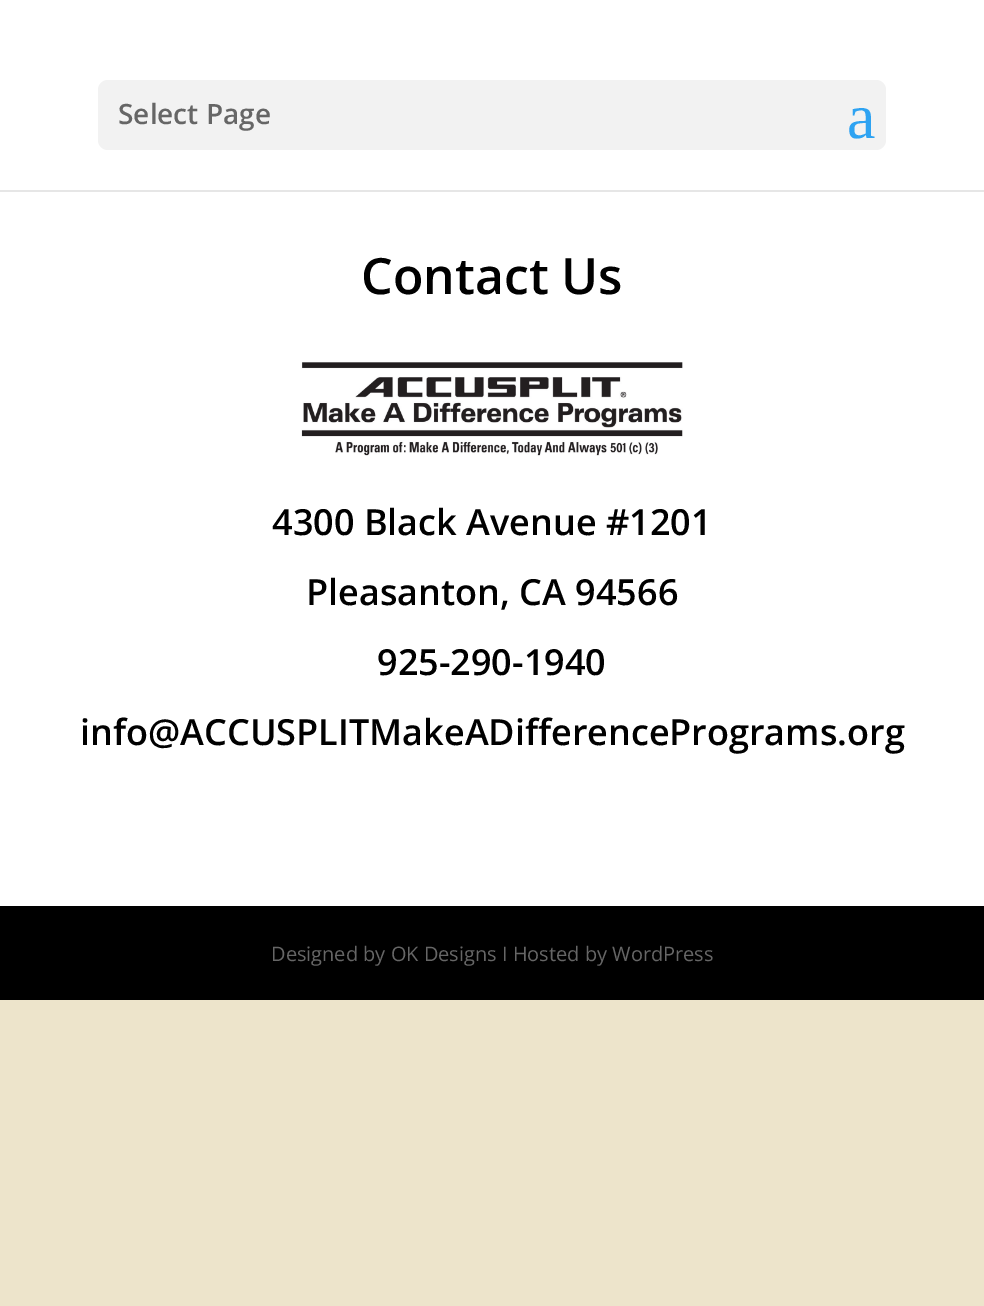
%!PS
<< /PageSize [984 1306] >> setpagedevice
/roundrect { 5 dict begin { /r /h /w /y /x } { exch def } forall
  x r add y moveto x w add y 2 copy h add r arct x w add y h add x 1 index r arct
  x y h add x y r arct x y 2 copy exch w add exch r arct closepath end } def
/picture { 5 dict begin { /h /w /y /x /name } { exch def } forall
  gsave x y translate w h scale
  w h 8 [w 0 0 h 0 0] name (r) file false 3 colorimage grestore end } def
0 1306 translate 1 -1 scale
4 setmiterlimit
0.929 0.894 0.796 setrgbcolor
0 0 984 1306 rectfill
0.902 setgray
0 190 984 2 rectfill
1 setgray
0 0 984 190 rectfill
0.949 setgray
98 80 788 70 10 roundrect fill
/OpenSans-SemiBold [28 0 0 -28 0 0] selectfont
0.4 setgray
118 124 moveto (Select Page) show
/LiberationSerif-Regular [64 0 0 -64 0 0] selectfont
0.18 0.639 0.949 setrgbcolor
847 138 moveto (a) show
1 setgray
0 192 984 714 rectfill
/OpenSans-SemiBold [50 0 0 -50 0 0] selectfont
0 setgray
361 294 moveto (Contact Us) show
(img1.rgb) 301 362 382 94 picture
/OpenSans-SemiBold [36 0 0 -36 0 0] selectfont
272 535 moveto (4300 Black Avenue #1201) show
306 605 moveto (Pleasanton, CA 94566) show
377 675 moveto (925-290-1940) show
80 745 moveto (info@ACCUSPLITMakeADifferencePrograms.org) show
0 906 984 94 rectfill
/OpenSans-Regular [20 0 0 -20 0 0] selectfont
0.4 setgray
271 961 moveto (Designed by OK Designs I Hosted by WordPress) show
showpage
